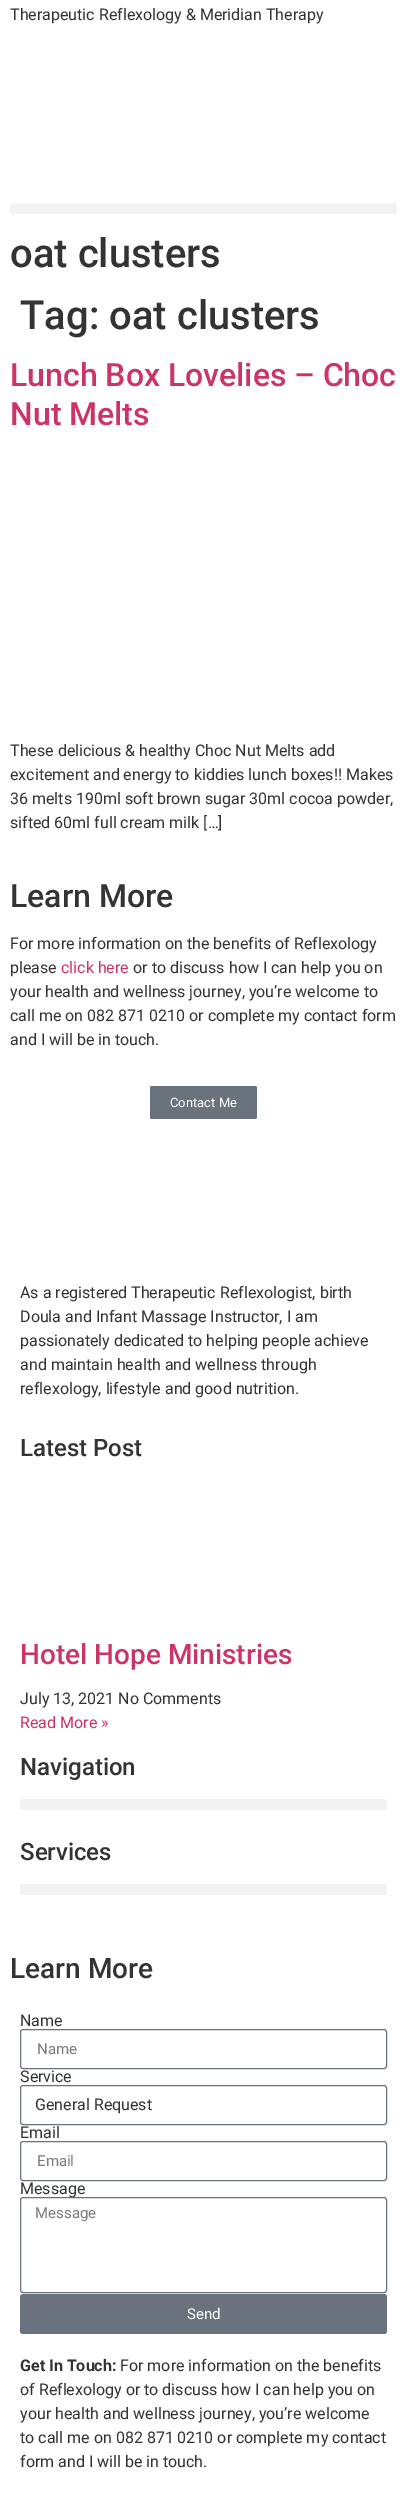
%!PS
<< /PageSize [407 2500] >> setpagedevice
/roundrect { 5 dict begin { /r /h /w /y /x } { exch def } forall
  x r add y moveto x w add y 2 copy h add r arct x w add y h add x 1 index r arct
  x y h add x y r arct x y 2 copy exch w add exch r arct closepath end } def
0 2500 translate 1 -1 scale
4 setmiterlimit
1 setgray
0 0 407 2500 rectfill
/Roboto-Regular [16 0 0 -16 0 0] selectfont
0.2 setgray
10 20 moveto (Therapeutic Reflexology & Meridian Therapy) show
0.949 setgray
10 203 387 11 3 roundrect fill
/Roboto-Medium [40 0 0 -40 0 0] selectfont
0.2 setgray
10 267 moveto (oat clusters) show
20 329 moveto (Tag: oat clusters) show
/Roboto-Medium [32 0 0 -32 0 0] selectfont
0.8 0.2 0.4 setrgbcolor
10 386 moveto (Lunch Box Lovelies – Choc) show
10 425 moveto (Nut Melts) show
/Roboto-Regular [16 0 0 -16 0 0] selectfont
0.2 setgray
10 756 moveto (These delicious & healthy Choc Nut Melts add) show
10 780 moveto (excitement and energy to kiddies lunch boxes!! Makes) show
10 804 moveto (36 melts 190ml soft brown sugar 30ml cocoa powder,) show
10 828 moveto (sifted 60ml full cream milk […]) show
/Roboto-Medium [32 0 0 -32 0 0] selectfont
10 907 moveto (Learn More) show
/Roboto-Regular [16 0 0 -16 0 0] selectfont
10 949 moveto (For more information on the benefits of Reflexology) show
10 973 moveto (please) show
0.8 0.2 0.4 setrgbcolor
61 973 moveto (click here) show
0.2 setgray
133 973 moveto (or to discuss how I can help you on) show
10 997 moveto (your health and wellness journey, you’re welcome to) show
10 1021 moveto (call me on 082 871 0210 or complete my contact form) show
10 1045 moveto (and I will be in touch.) show
0.412 0.447 0.49 setrgbcolor
150 1086 107 33 2 roundrect fill
/Roboto-Regular [13 0 0 -13 0 0] selectfont
1 setgray
170 1107 moveto (Contact Me) show
/Roboto-Regular [16 0 0 -16 0 0] selectfont
0.2 setgray
20 1298 moveto (As a registered Therapeutic Reflexologist, birth) show
20 1322 moveto (Doula and Infant Massage Instructor, I am) show
20 1346 moveto (passionately dedicated to helping people achieve) show
20 1370 moveto (and maintain health and wellness through) show
20 1394 moveto (reflexology, lifestyle and good nutrition.) show
/Roboto-Medium [24 0 0 -24 0 0] selectfont
20 1456 moveto (Latest Post) show
/Roboto-Medium [28 0 0 -28 0 0] selectfont
0.8 0.2 0.4 setrgbcolor
20 1664 moveto (Hotel Hope Ministries) show
/Roboto-Regular [16 0 0 -16 0 0] selectfont
0.2 setgray
20 1704 moveto (July 13, 2021 No Comments) show
0.8 0.2 0.4 setrgbcolor
20 1728 moveto (Read More ») show
/Roboto-Medium [24 0 0 -24 0 0] selectfont
0.2 setgray
20 1775 moveto (Navigation) show
0.949 setgray
20 1799 367 11 3 roundrect fill
0.2 setgray
20 1860 moveto (Services) show
0.949 setgray
20 1884 367 11 3 roundrect fill
/Roboto-Medium [28 0 0 -28 0 0] selectfont
0.2 setgray
10 1978 moveto (Learn More) show
/Roboto-Regular [16 0 0 -16 0 0] selectfont
20 2026 moveto (Name) show
0.412 0.447 0.49 setrgbcolor
20.5 2029.5 366 39 2.5 roundrect stroke
/Roboto-Regular [15 0 0 -15 0 0] selectfont
0.475 0.478 0.486 setrgbcolor
37 2054 moveto (Name) show
/Roboto-Regular [16 0 0 -16 0 0] selectfont
0.2 setgray
20 2082 moveto (Service) show
0.412 0.447 0.49 setrgbcolor
20.5 2085.5 366 39 2.5 roundrect stroke
0.2 setgray
35 2110 moveto (General Request) show
20 2138 moveto (Email) show
0.412 0.447 0.49 setrgbcolor
20.5 2141.5 366 39 2.5 roundrect stroke
/Roboto-Regular [15 0 0 -15 0 0] selectfont
0.475 0.478 0.486 setrgbcolor
37 2166 moveto (Email) show
/Roboto-Regular [16 0 0 -16 0 0] selectfont
0.2 setgray
20 2194 moveto (Message) show
0.412 0.447 0.49 setrgbcolor
20.5 2197.5 366 95 2.5 roundrect stroke
/Roboto-Regular [15 0 0 -15 0 0] selectfont
0.475 0.478 0.486 setrgbcolor
35 2218 moveto (Message) show
0.412 0.447 0.49 setrgbcolor
20 2294 367 40 3 roundrect fill
1 setgray
187 2319 moveto (Send) show
/Roboto-Bold [16 0 0 -16 0 0] selectfont
0.2 setgray
20 2371 moveto (Get In Touch:) show
/Roboto-Regular [16 0 0 -16 0 0] selectfont
120 2371 moveto (For more information on the benefits) show
20 2395 moveto (of Reflexology or to discuss how I can help you on) show
20 2419 moveto (your health and wellness journey, you’re welcome) show
20 2443 moveto (to call me on 082 871 0210 or complete my contact) show
20 2467 moveto (form and I will be in touch.) show
showpage
